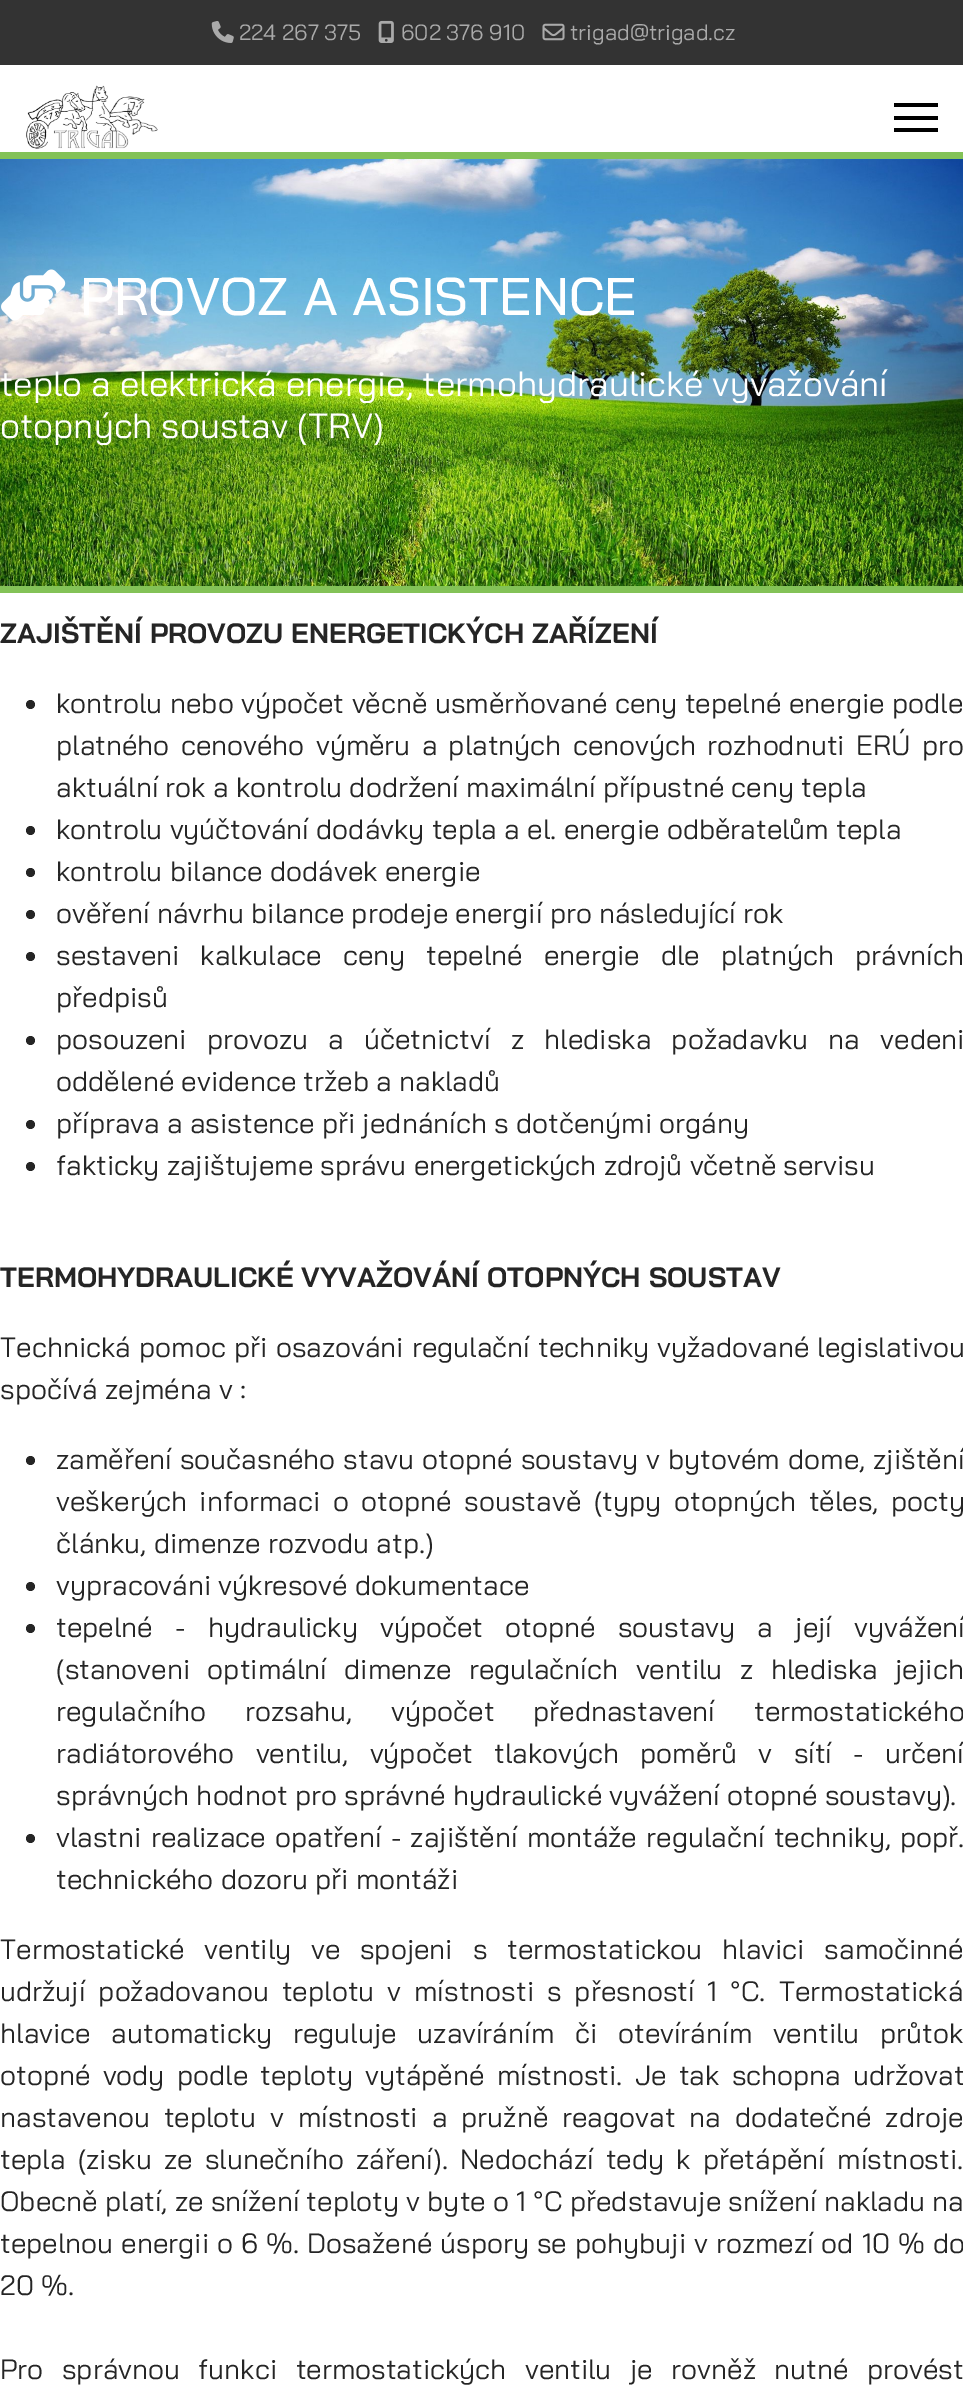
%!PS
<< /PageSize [963 2390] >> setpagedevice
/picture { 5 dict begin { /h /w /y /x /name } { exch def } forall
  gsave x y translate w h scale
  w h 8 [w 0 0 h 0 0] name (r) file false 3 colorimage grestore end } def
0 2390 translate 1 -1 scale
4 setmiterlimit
1 setgray
0 0 963 2390 rectfill
0.2 setgray
0 0 963 65 rectfill
(img1.rgb) 211 21 23 22 picture
/BaiJamjuree-Regular [22 0 0 -22 0 0] selectfont
0.667 setgray
239 40 moveto (224 267 375) show
(img2.rgb) 378 20 16 23 picture
401 40 moveto (602 376 910) show
(img3.rgb) 542 23 23 18 picture
570 40 moveto (trigad@trigad.cz) show
(img4.rgb) 26 85 132 64 picture
0 setgray
894 103 44 4 rectfill
894 116 44 4 rectfill
894 128 44 4 rectfill
(img5.rgb) 0 159 963 427 picture
0.514 0.761 0.341 setrgbcolor
0 152 963 7 rectfill
0 586 963 7 rectfill
(img6.rgb) 1 269 65 52 picture
/BaiJamjuree-Medium [53 0 0 -53 0 0] selectfont
1 setgray
80 315 moveto (PROVOZ A ASISTENCE) show
/BaiJamjuree-Regular [35 0 0 -35 0 0] selectfont
0 396 moveto (teplo a elektrická energie, termohydraulické vyvažování) show
0 438 moveto (otopných soustav \(TRV\)) show
/BaiJamjuree-Bold [28 0 0 -28 0 0] selectfont
0.145 setgray
0 643 moveto (ZAJIŠTĚNÍ PROVOZU ENERGETICKÝCH ZAŘÍZENÍ) show
newpath 30.5 704.5 4.5 0 360 arc closepath fill
/BaiJamjuree-Regular [28 0 0 -28 0 0] selectfont
56 713 moveto 0.25 0 32 (kontrolu nebo výpočet věcně usměrňované ceny tepelné energie podle) widthshow
56 755 moveto 4 0 32 (platného cenového výměru a platných cenových rozhodnuti ERÚ pro) widthshow
56 797 moveto (aktuální rok a kontrolu dodržení maximální přípustné ceny tepla) show
newpath 30.5 830.5 4.5 0 360 arc closepath fill
56 839 moveto (kontrolu vyúčtování dodávky tepla a el. energie odběratelům tepla) show
newpath 30.5 872.5 4.5 0 360 arc closepath fill
56 881 moveto (kontrolu bilance dodávek energie) show
newpath 30.5 914.5 4.5 0 360 arc closepath fill
56 923 moveto (ověření návrhu bilance prodeje energií pro následující rok) show
newpath 30.5 956.5 4.5 0 360 arc closepath fill
56 965 moveto 13.75 0 32 (sestaveni kalkulace ceny tepelné energie dle platných právních) widthshow
56 1007 moveto (předpisů) show
newpath 30.5 1040.5 4.5 0 360 arc closepath fill
56 1049 moveto 13 0 32 (posouzeni provozu a účetnictví z hlediska požadavku na vedeni) widthshow
56 1091 moveto (oddělené evidence tržeb a nakladů) show
newpath 30.5 1124.5 4.5 0 360 arc closepath fill
56 1133 moveto (příprava a asistence při jednáních s dotčenými orgány) show
newpath 30.5 1166.5 4.5 0 360 arc closepath fill
56 1175 moveto (fakticky zajištujeme správu energetických zdrojů včetně servisu) show
/BaiJamjuree-Bold [28 0 0 -28 0 0] selectfont
0 1287 moveto (TERMOHYDRAULICKÉ VYVAŽOVÁNÍ OTOPNÝCH SOUSTAV) show
/BaiJamjuree-Regular [28 0 0 -28 0 0] selectfont
0 1357 moveto 1 0 32 (Technická pomoc při osazováni regulační techniky vyžadované legislativou) widthshow
0 1399 moveto (spočívá zejména v :) show
newpath 30.5 1460.5 4.5 0 360 arc closepath fill
56 1469 moveto 1 0 32 (zaměření současného stavu otopné soustavy v bytovém dome, zjištění) widthshow
56 1511 moveto 5.5 0 32 (veškerých informaci o otopné soustavě \(typy otopných těles, pocty) widthshow
56 1553 moveto (článku, dimenze rozvodu atp.\)) show
newpath 30.5 1586.5 4.5 0 360 arc closepath fill
56 1595 moveto (vypracováni výkresové dokumentace) show
newpath 30.5 1628.5 4.5 0 360 arc closepath fill
56 1637 moveto 15 0 32 (tepelné - hydraulicky výpočet otopné soustavy a její vyvážení) widthshow
56 1679 moveto 10.25 0 32 (\(stanoveni optimální dimenze regulačních ventilu z hlediska jejich) widthshow
56 1721 moveto 31.5 0 32 (regulačního rozsahu, výpočet přednastavení termostatického) widthshow
56 1763 moveto 14 0 32 (radiátorového ventilu, výpočet tlakových poměrů v sítí - určení) widthshow
56 1805 moveto (správných hodnot pro správné hydraulické vyvážení otopné soustavy\).) show
newpath 30.5 1838.5 4.5 0 360 arc closepath fill
56 1847 moveto 2 0 32 (vlastni realizace opatření - zajištění montáže regulační techniky, popř.) widthshow
56 1889 moveto (technického dozoru při montáži) show
0 1959 moveto 12.5 0 32 (Termostatické ventily ve spojeni s termostatickou hlavici samočinné) widthshow
0 2001 moveto 5.75 0 32 (udržují požadovanou teplotu v místnosti s přesností 1 °C. Termostatická) widthshow
0 2043 moveto 13.5 0 32 (hlavice automaticky reguluje uzavíráním či otevíráním ventilu průtok) widthshow
0 2085 moveto 5 0 32 (otopné vody podle teploty vytápěné místnosti. Je tak schopna udržovat) widthshow
0 2127 moveto 6.75 0 32 (nastavenou teplotu v místnosti a pružně reagovat na dodatečné zdroje) widthshow
0 2169 moveto 5 0 32 (tepla \(zisku ze slunečního záření\). Nedochází tedy k přetápění místnosti.) widthshow
0 2211 moveto (Obecně platí, ze snížení teploty v byte o 1 °C představuje snížení nakladu na) show
0 2253 moveto 0.75 0 32 (tepelnou energii o 6 %. Dosažené úspory se pohybuji v rozmezí od 10 % do) widthshow
0 2295 moveto (20 %.) show
0 2379 moveto 11.25 0 32 (Pro správnou funkci termostatických ventilu je rovněž nutné provést) widthshow
showpage
